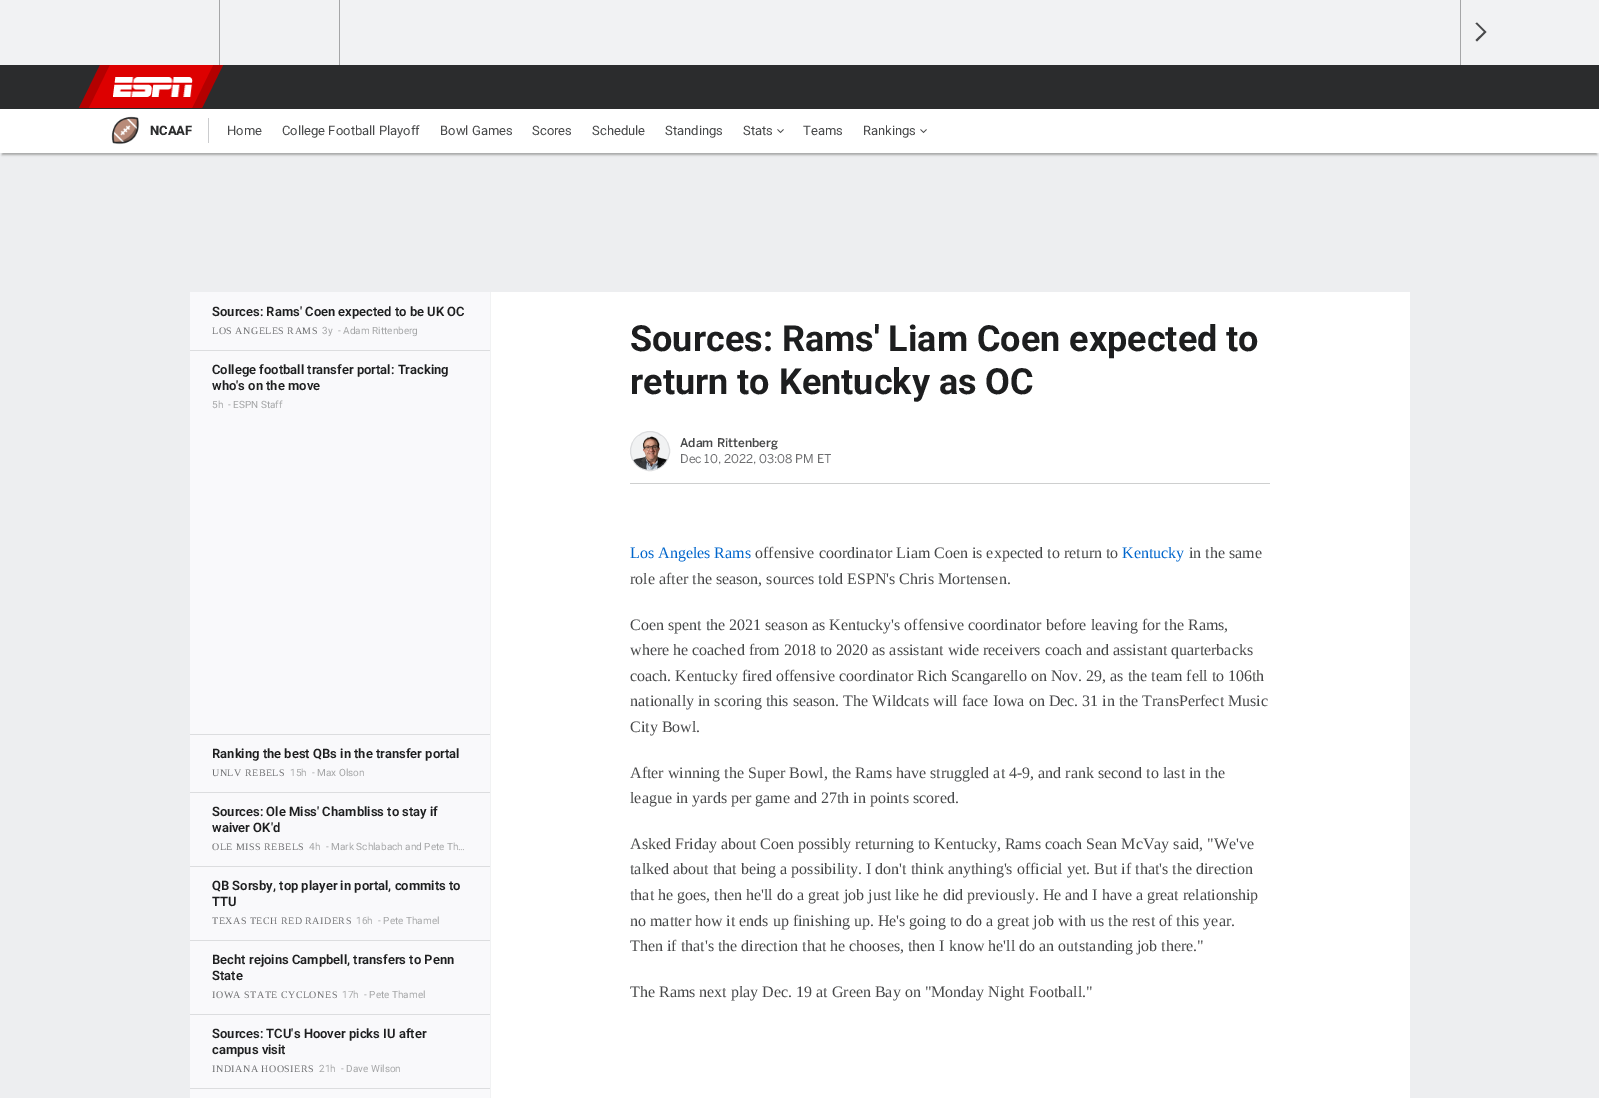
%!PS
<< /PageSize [1599 1098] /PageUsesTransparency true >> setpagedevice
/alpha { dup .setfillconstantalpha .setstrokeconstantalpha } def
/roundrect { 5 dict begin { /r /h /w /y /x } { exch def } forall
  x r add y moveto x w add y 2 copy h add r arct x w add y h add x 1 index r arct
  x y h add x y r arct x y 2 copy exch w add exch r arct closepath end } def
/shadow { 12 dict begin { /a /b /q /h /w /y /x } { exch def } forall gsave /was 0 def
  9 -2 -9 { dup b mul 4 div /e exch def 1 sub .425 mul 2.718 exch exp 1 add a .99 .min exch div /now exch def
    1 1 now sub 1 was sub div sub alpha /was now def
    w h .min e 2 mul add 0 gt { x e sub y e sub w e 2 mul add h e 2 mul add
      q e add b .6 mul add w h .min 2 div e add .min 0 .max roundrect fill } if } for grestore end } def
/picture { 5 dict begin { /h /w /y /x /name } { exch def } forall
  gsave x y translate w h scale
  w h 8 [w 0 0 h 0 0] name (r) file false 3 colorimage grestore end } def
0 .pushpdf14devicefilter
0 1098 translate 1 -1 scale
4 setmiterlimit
0.929 0.933 0.941 setrgbcolor
0 0 1599 1098 rectfill
0.945 0.949 0.953 setrgbcolor
0 0 1599 65 rectfill
0.647 0.651 0.655 setrgbcolor
219 0 1 65 rectfill
339 0 1 65 rectfill
1460 0 1 65 rectfill
0.282 0.286 0.29 setrgbcolor
newpath 1477 22.5 moveto 1475.5 23.5 lineto 1484 32 lineto 1475.5 40 lineto 1477 41.5 lineto 1486.5 32 lineto closepath fill
0.169 0.173 0.176 setrgbcolor
0 65 1599 44 rectfill
0.706 0 0 setrgbcolor
newpath 100 65 moveto 223 65 lineto 202 108 lineto 79 108 lineto closepath fill
0.867 0 0 setrgbcolor
newpath 110 65 moveto 213 65 lineto 192 108 lineto 89 108 lineto closepath fill
(img1.rgb) 113 77 80 20 picture
0 setgray
2 115 1595 40 0 1 0.3 shadow
1 setgray
0 109 1599 44 1 roundrect fill
(img2.rgb) 111 116 29 29 picture
/Roboto-ExtraBold [13 0 0 -13 0 0] selectfont
0.169 0.173 0.176 setrgbcolor
150 135 moveto (NCAAF) show
0.796 0.8 0.808 setrgbcolor
208 118 1 25 rectfill
/Roboto-Regular [13 0 0 -13 0 0] selectfont
0.282 0.286 0.29 setrgbcolor
227 135 moveto (Home) show
282 135 moveto (College Football Playoff) show
440 135 moveto (Bowl Games) show
532 135 moveto (Scores) show
592 135 moveto (Schedule) show
665 135 moveto (Standings) show
743 135 moveto (Stats) show
(img3.rgb) 777 129 7 5 picture
803 135 moveto (Teams) show
863 135 moveto (Rankings) show
(img3.rgb) 920 129 7 5 picture
0.976 0.976 0.984 setrgbcolor
190 292 300 806 rectfill
/Roboto-SemiBold [13 0 0 -13 0 0] selectfont
0.114 0.118 0.122 setrgbcolor
212 316 moveto (Sources: Rams' Coen expected to be UK OC) show
/LiberationSerif-Regular [10 0 0 -10 0 0] selectfont
0.424 0.427 0.435 setrgbcolor
212 334 moveto 0.5 0 (LOS ANGELES RAMS) ashow
/Roboto-Regular [10 0 0 -10 0 0] selectfont
0.647 0.651 0.655 setrgbcolor
322 334 moveto (3y) show
338 334 moveto (- Adam Rittenberg) show
0.863 0.867 0.875 setrgbcolor
190 350 300 1 rectfill
/Roboto-SemiBold [13 0 0 -13 0 0] selectfont
0.114 0.118 0.122 setrgbcolor
212 374 moveto (College football transfer portal: Tracking) show
212 390 moveto (who's on the move) show
/Roboto-Regular [10 0 0 -10 0 0] selectfont
0.647 0.651 0.655 setrgbcolor
212 408 moveto (5h) show
228 408 moveto (- ESPN Staff) show
0.863 0.867 0.875 setrgbcolor
190 734 300 1 rectfill
/Roboto-SemiBold [13 0 0 -13 0 0] selectfont
0.114 0.118 0.122 setrgbcolor
212 758 moveto (Ranking the best QBs in the transfer portal) show
/LiberationSerif-Regular [10 0 0 -10 0 0] selectfont
0.424 0.427 0.435 setrgbcolor
212 776 moveto 0.5 0 (UNLV REBELS) ashow
/Roboto-Regular [10 0 0 -10 0 0] selectfont
0.647 0.651 0.655 setrgbcolor
290 776 moveto (15h) show
312 776 moveto (- Max Olson) show
0.863 0.867 0.875 setrgbcolor
190 792 300 1 rectfill
/Roboto-SemiBold [13 0 0 -13 0 0] selectfont
0.114 0.118 0.122 setrgbcolor
212 816 moveto (Sources: Ole Miss' Chambliss to stay if) show
212 832 moveto (waiver OK'd) show
/LiberationSerif-Regular [10 0 0 -10 0 0] selectfont
0.424 0.427 0.435 setrgbcolor
212 850 moveto 0.5 0 (OLE MISS REBELS) ashow
/Roboto-Regular [10 0 0 -10 0 0] selectfont
0.647 0.651 0.655 setrgbcolor
309 850 moveto (4h) show
326 850 moveto (- Mark Schlabach and Pete Th…) show
0.863 0.867 0.875 setrgbcolor
190 866 300 1 rectfill
/Roboto-SemiBold [13 0 0 -13 0 0] selectfont
0.114 0.118 0.122 setrgbcolor
212 890 moveto (QB Sorsby, top player in portal, commits to) show
212 906 moveto (TTU) show
/LiberationSerif-Regular [10 0 0 -10 0 0] selectfont
0.424 0.427 0.435 setrgbcolor
212 924 moveto 0.5 0 (TEXAS TECH RED RAIDERS) ashow
/Roboto-Regular [10 0 0 -10 0 0] selectfont
0.647 0.651 0.655 setrgbcolor
356 924 moveto (16h) show
378 924 moveto (- Pete Thamel) show
0.863 0.867 0.875 setrgbcolor
190 940 300 1 rectfill
/Roboto-SemiBold [13 0 0 -13 0 0] selectfont
0.114 0.118 0.122 setrgbcolor
212 964 moveto (Becht rejoins Campbell, transfers to Penn) show
212 980 moveto (State) show
/LiberationSerif-Regular [10 0 0 -10 0 0] selectfont
0.424 0.427 0.435 setrgbcolor
212 998 moveto 0.5 0 (IOWA STATE CYCLONES) ashow
/Roboto-Regular [10 0 0 -10 0 0] selectfont
0.647 0.651 0.655 setrgbcolor
342 998 moveto (17h) show
364 998 moveto (- Pete Thamel) show
0.863 0.867 0.875 setrgbcolor
190 1014 300 1 rectfill
/Roboto-SemiBold [13 0 0 -13 0 0] selectfont
0.114 0.118 0.122 setrgbcolor
212 1038 moveto (Sources: TCU's Hoover picks IU after) show
212 1054 moveto (campus visit) show
/LiberationSerif-Regular [10 0 0 -10 0 0] selectfont
0.424 0.427 0.435 setrgbcolor
212 1072 moveto 0.5 0 (INDIANA HOOSIERS) ashow
/Roboto-Regular [10 0 0 -10 0 0] selectfont
0.647 0.651 0.655 setrgbcolor
319 1072 moveto (21h) show
341 1072 moveto (- Dave Wilson) show
0.863 0.867 0.875 setrgbcolor
190 1088 300 1 rectfill
0.945 0.949 0.953 setrgbcolor
490 292 1 806 rectfill
1 setgray
491 292 919 806 rectfill
/Roboto-Bold [36 0 0 -36 0 0] selectfont
0.114 0.118 0.122 setrgbcolor
630 351 moveto (Sources: Rams' Liam Coen expected to) show
630 394 moveto (return to Kentucky as OC) show
0.808 0.812 0.812 setrgbcolor
630 483 640 1 rectfill
0.945 0.949 0.953 setrgbcolor
newpath 650 451 19.5 0 360 arc closepath gsave fill grestore
0.863 0.867 0.875 setrgbcolor
stroke
(img4.rgb) 633 436 34 34 picture
/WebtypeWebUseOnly-Medium [12 0 0 -12 0 0] selectfont
0.282 0.286 0.29 setrgbcolor
680 447 moveto (Adam Rittenberg) show
/WebtypeWebUseOnly-Regular [12 0 0 -12 0 0] selectfont
0.424 0.427 0.435 setrgbcolor
680 463 moveto (Dec 10, 2022, 03:08 PM ET) show
/LiberationSerif-Regular [16 0 0 -16 0 0] selectfont
0 0.4 0.8 setrgbcolor
630 558 moveto (Los Angeles Rams) show
0.282 0.286 0.29 setrgbcolor
755 558 moveto (offensive coordinator Liam Coen is expected to return to) show
0 0.4 0.8 setrgbcolor
1122 558 moveto (Kentucky) show
0.282 0.286 0.29 setrgbcolor
1189 558 moveto (in the same) show
630 584 moveto (role after the season, sources told ESPN's Chris Mortensen.) show
630 630 moveto (Coen spent the 2021 season as Kentucky's offensive coordinator before leaving for the Rams,) show
630 655 moveto (where he coached from 2018 to 2020 as assistant wide receivers coach and assistant quarterbacks) show
630 681 moveto (coach. Kentucky fired offensive coordinator Rich Scangarello on Nov. 29, as the team fell to 106th) show
630 706 moveto (nationally in scoring this season. The Wildcats will face Iowa on Dec. 31 in the TransPerfect Music) show
630 732 moveto (City Bowl.) show
630 778 moveto (After winning the Super Bowl, the Rams have struggled at 4-9, and rank second to last in the) show
630 803 moveto (league in yards per game and 27th in points scored.) show
630 849 moveto (Asked Friday about Coen possibly returning to Kentucky, Rams coach Sean McVay said, "We've) show
630 874 moveto (talked about that being a possibility. I don't think anything's official yet. But if that's the direction) show
630 900 moveto (that he goes, then he'll do a great job just like he did previously. He and I have a great relationship) show
630 926 moveto (no matter how it ends up finishing up. He's going to do a great job with us the rest of this year.) show
630 951 moveto (Then if that's the direction that he chooses, then I know he'll do an outstanding job there.") show
630 997 moveto (The Rams next play Dec. 19 at Green Bay on "Monday Night Football.") show
.poppdf14devicefilter showpage
